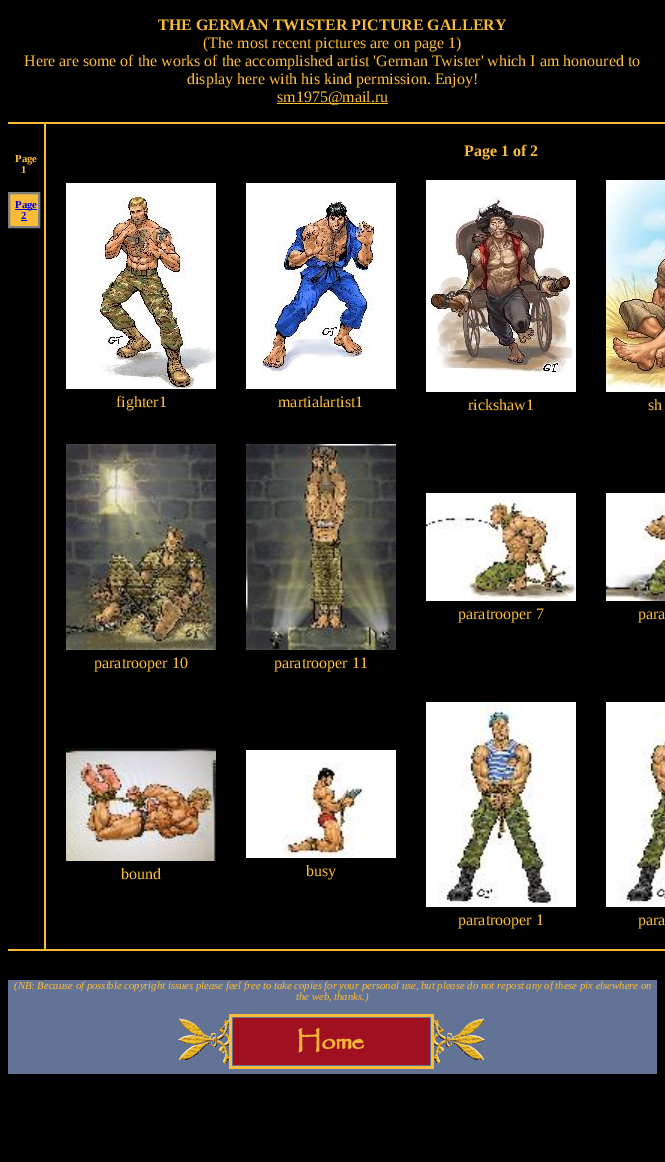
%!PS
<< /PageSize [665 1162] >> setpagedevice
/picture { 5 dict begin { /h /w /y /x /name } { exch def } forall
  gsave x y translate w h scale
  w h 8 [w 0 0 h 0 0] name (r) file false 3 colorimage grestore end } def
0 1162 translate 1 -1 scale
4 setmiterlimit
0 setgray
0 0 665 1162 rectfill
/LiberationSerif-Bold [16 0 0 -16 0 0] selectfont
0.98 0.737 0.22 setrgbcolor
158 30 moveto (THE GERMAN TWISTER PICTURE GALLERY) show
/LiberationSerif-Regular [16 0 0 -16 0 0] selectfont
203 48 moveto (\(The most recent pictures are on page 1\)) show
24 66 moveto (Here are some of the works of the accomplished artist 'German Twister' which I am honoured to) show
187 84 moveto (display here with his kind permission. Enjoy!) show
277 103 111 1 rectfill
277 102 moveto (sm1975@mail.ru) show
8 122 657 2 rectfill
8 949 657 2 rectfill
/LiberationSerif-Bold [10.67 0 0 -10.67 0 0] selectfont
15 162 moveto (Page) show
21 173 moveto (1) show
newpath 9 193 moveto 39 193 lineto 39 227 lineto 9 227 lineto closepath gsave fill grestore
0.502 setgray
2 setlinewidth
stroke
0 0 0.933 setrgbcolor
15 209 22 1 rectfill
15 208 moveto (Page) show
21 219 moveto (2) show
21 220 6 1 rectfill
0.98 0.737 0.22 setrgbcolor
44 124 2 825 rectfill
/LiberationSerif-Bold [16 0 0 -16 0 0] selectfont
464 156 moveto (Page 1 of 2) show
(img1.rgb) 66 183 150 206 picture
/LiberationSerif-Regular [16 0 0 -16 0 0] selectfont
116 407 moveto (fighter1) show
(img2.rgb) 246 183 150 206 picture
278 407 moveto (martialartist1) show
(img3.rgb) 426 180 150 212 picture
468 410 moveto (rickshaw1) show
(img4.rgb) 606 180 59 212 picture
648 410 moveto (sh) show
(img5.rgb) 426 493 150 108 picture
458 619 moveto (paratrooper 7) show
(img6.rgb) 606 493 59 108 picture
638 619 moveto (para) show
(img7.rgb) 66 444 150 206 picture
94 668 moveto (paratrooper 10) show
(img8.rgb) 246 444 150 206 picture
274 668 moveto (paratrooper 11) show
(img9.rgb) 66 748 150 113 picture
121 879 moveto (bound) show
(img10.rgb) 246 750 150 108 picture
306 876 moveto (busy) show
(img11.rgb) 426 702 150 205 picture
458 925 moveto (paratrooper 1) show
(img12.rgb) 606 702 59 205 picture
638 925 moveto (para) show
0.388 0.451 0.584 setrgbcolor
8 980 649 94 rectfill
/LiberationSerif-Italic [10.67 0 0 -10.67 0 0] selectfont
0.98 0.737 0.22 setrgbcolor
14 989 moveto (\(NB: Because of possible copyright issues please feel free to take copies for your personal use, but please do not repost any of these pix elsewhere on) show
296 1000 moveto (the web, thanks.\)) show
(img13.rgb) 178 1014 307 55 picture
showpage
